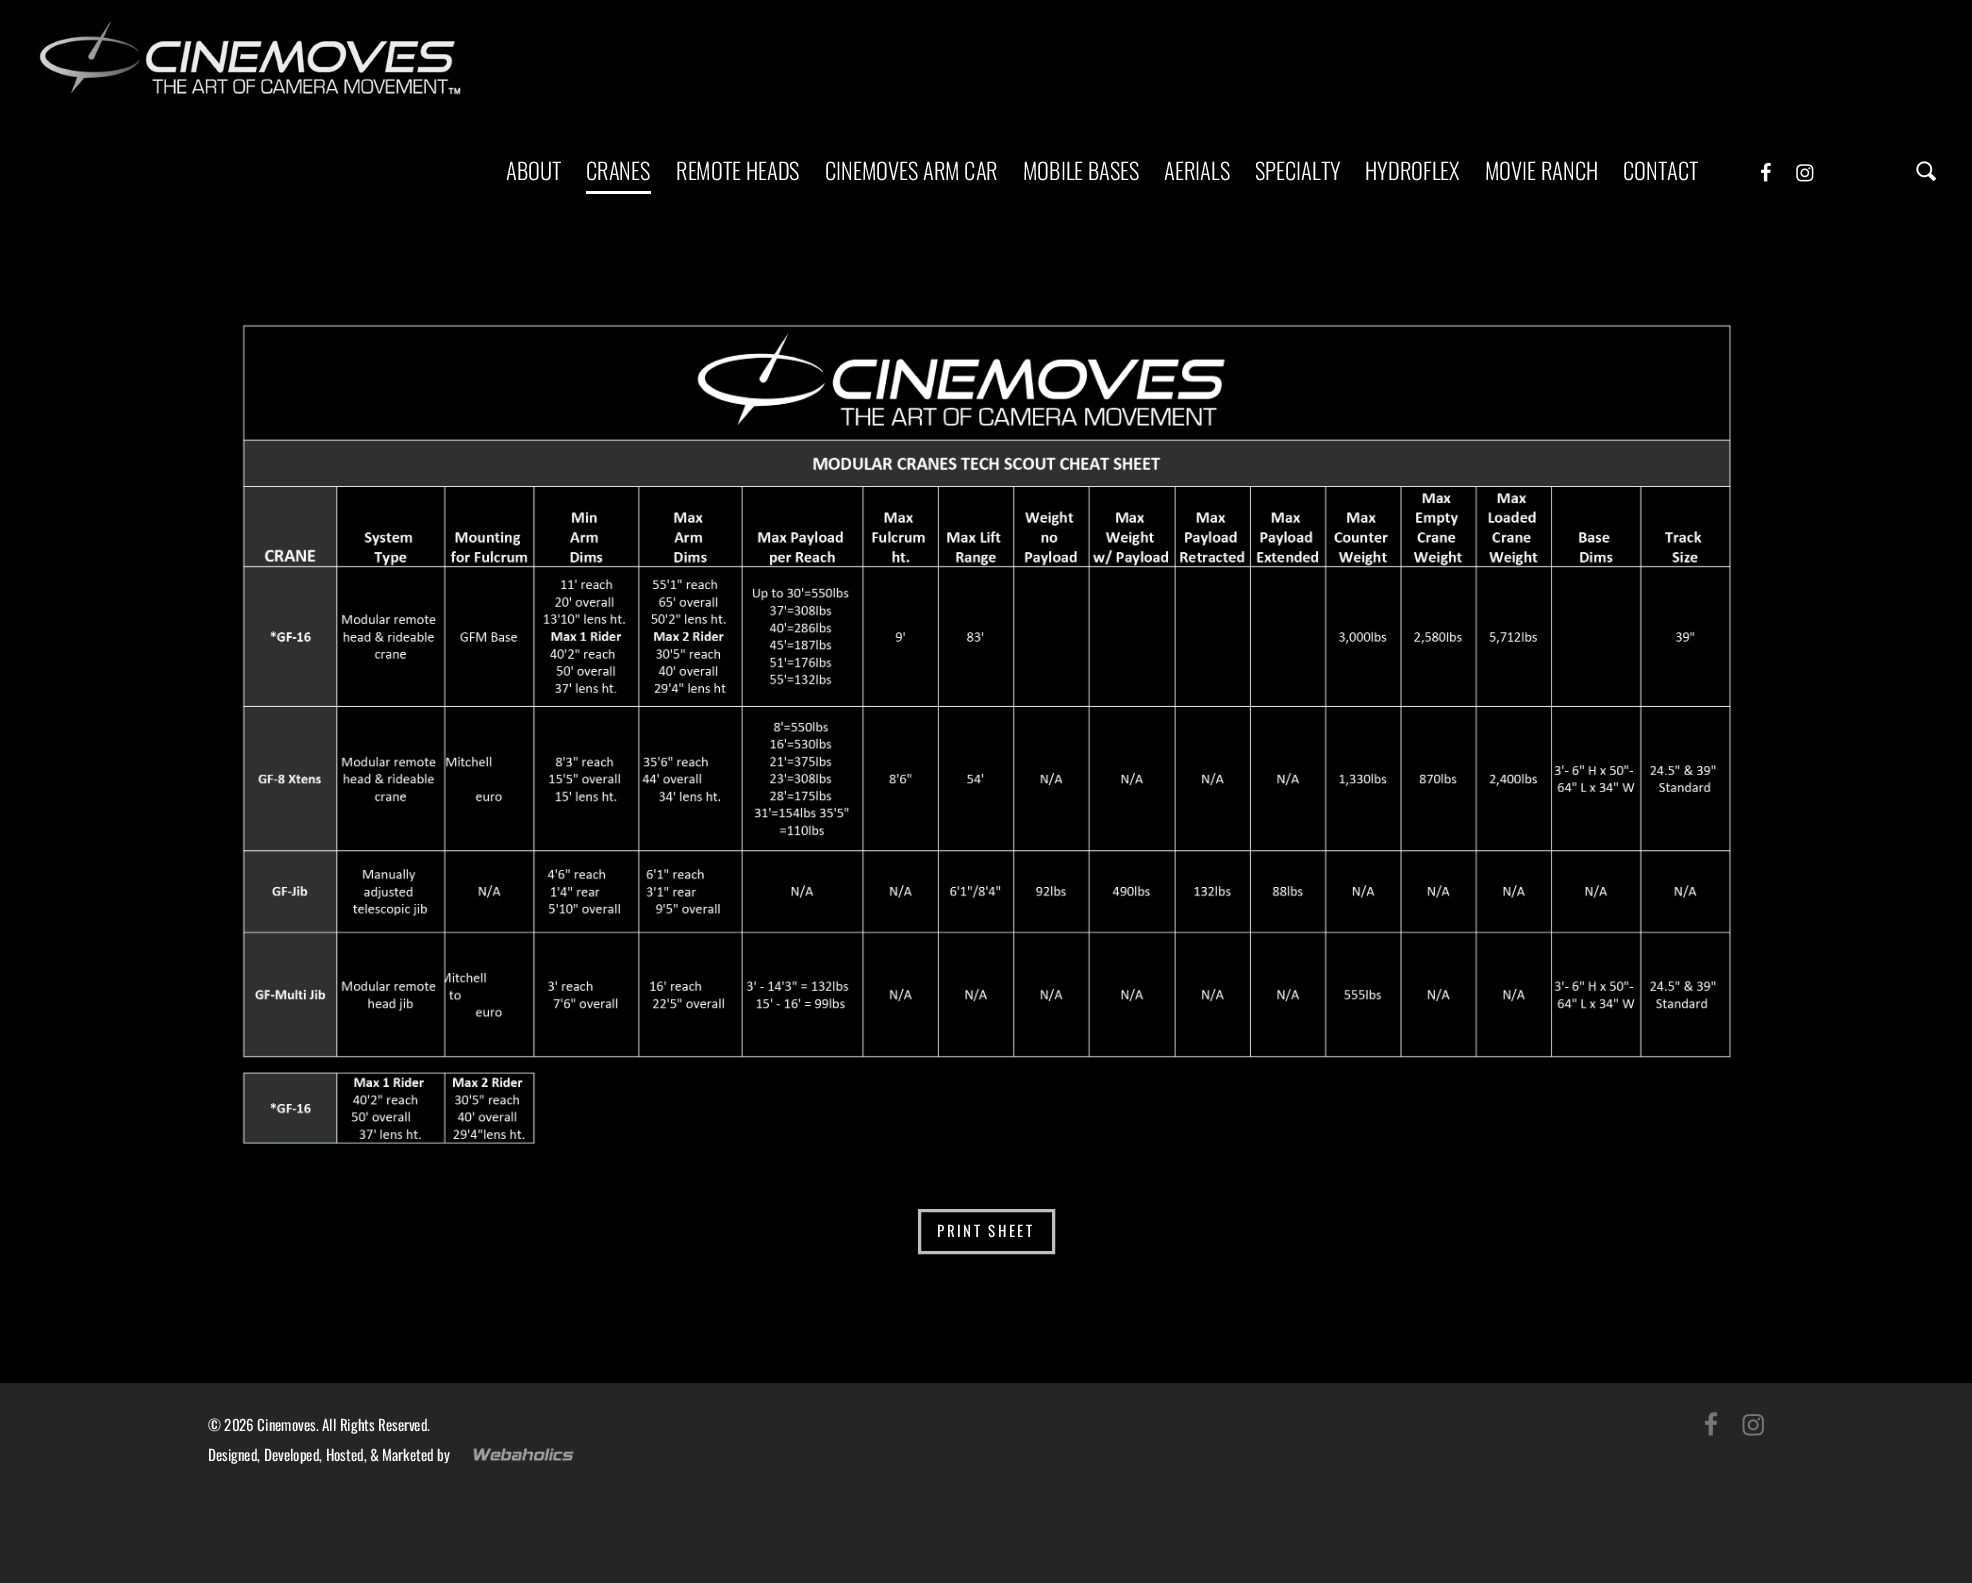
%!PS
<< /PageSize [1972 1583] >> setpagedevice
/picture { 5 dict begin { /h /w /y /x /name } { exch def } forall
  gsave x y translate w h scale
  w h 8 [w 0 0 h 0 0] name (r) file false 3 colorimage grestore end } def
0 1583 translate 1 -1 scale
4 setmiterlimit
0.145 setgray
0 0 1972 1583 rectfill
0 setgray
0 0 1972 1383 rectfill
(img1.rgb) 39 20 422 75 picture
/Oswald-Light [22.5 0 0 -22.5 0 0] selectfont
1 setgray
506 180 moveto (ABOUT) show
586 180 moveto (CRANES) show
586 191 65 3 rectfill
676 180 moveto (REMOTE HEADS) show
825 180 moveto (CINEMOVES ARM CAR) show
1023 180 moveto (MOBILE BASES) show
1164 180 moveto (AERIALS) show
1255 180 moveto (SPECIALTY) show
1365 180 moveto (HYDROFLEX) show
1485 180 moveto (MOVIE RANCH) show
1623 180 moveto (CONTACT) show
(img2.rgb) 1761 162 10 20 picture
(img3.rgb) 1796 164 18 18 picture
(img4.rgb) 1916 161 21 21 picture
(img5.rgb) 242 324 1490 820 picture
0.749 setgray
3 setlinewidth
919.5 1210.5 134 42 rectstroke
/Oswald-Regular [15 0 0 -15 0 0] selectfont
1 setgray
937 1237 moveto 2.5 0 (PRINT SHEET) ashow
208 1431 moveto (© 2026 Cinemoves. All Rights Reserved.) show
208 1461 moveto (Designed, Developed, Hosted, & Marketed by) show
(img6.rgb) 473 1448 101 13 picture
(img7.rgb) 1705 1412 13 24 picture
(img8.rgb) 1742 1414 22 22 picture
showpage
